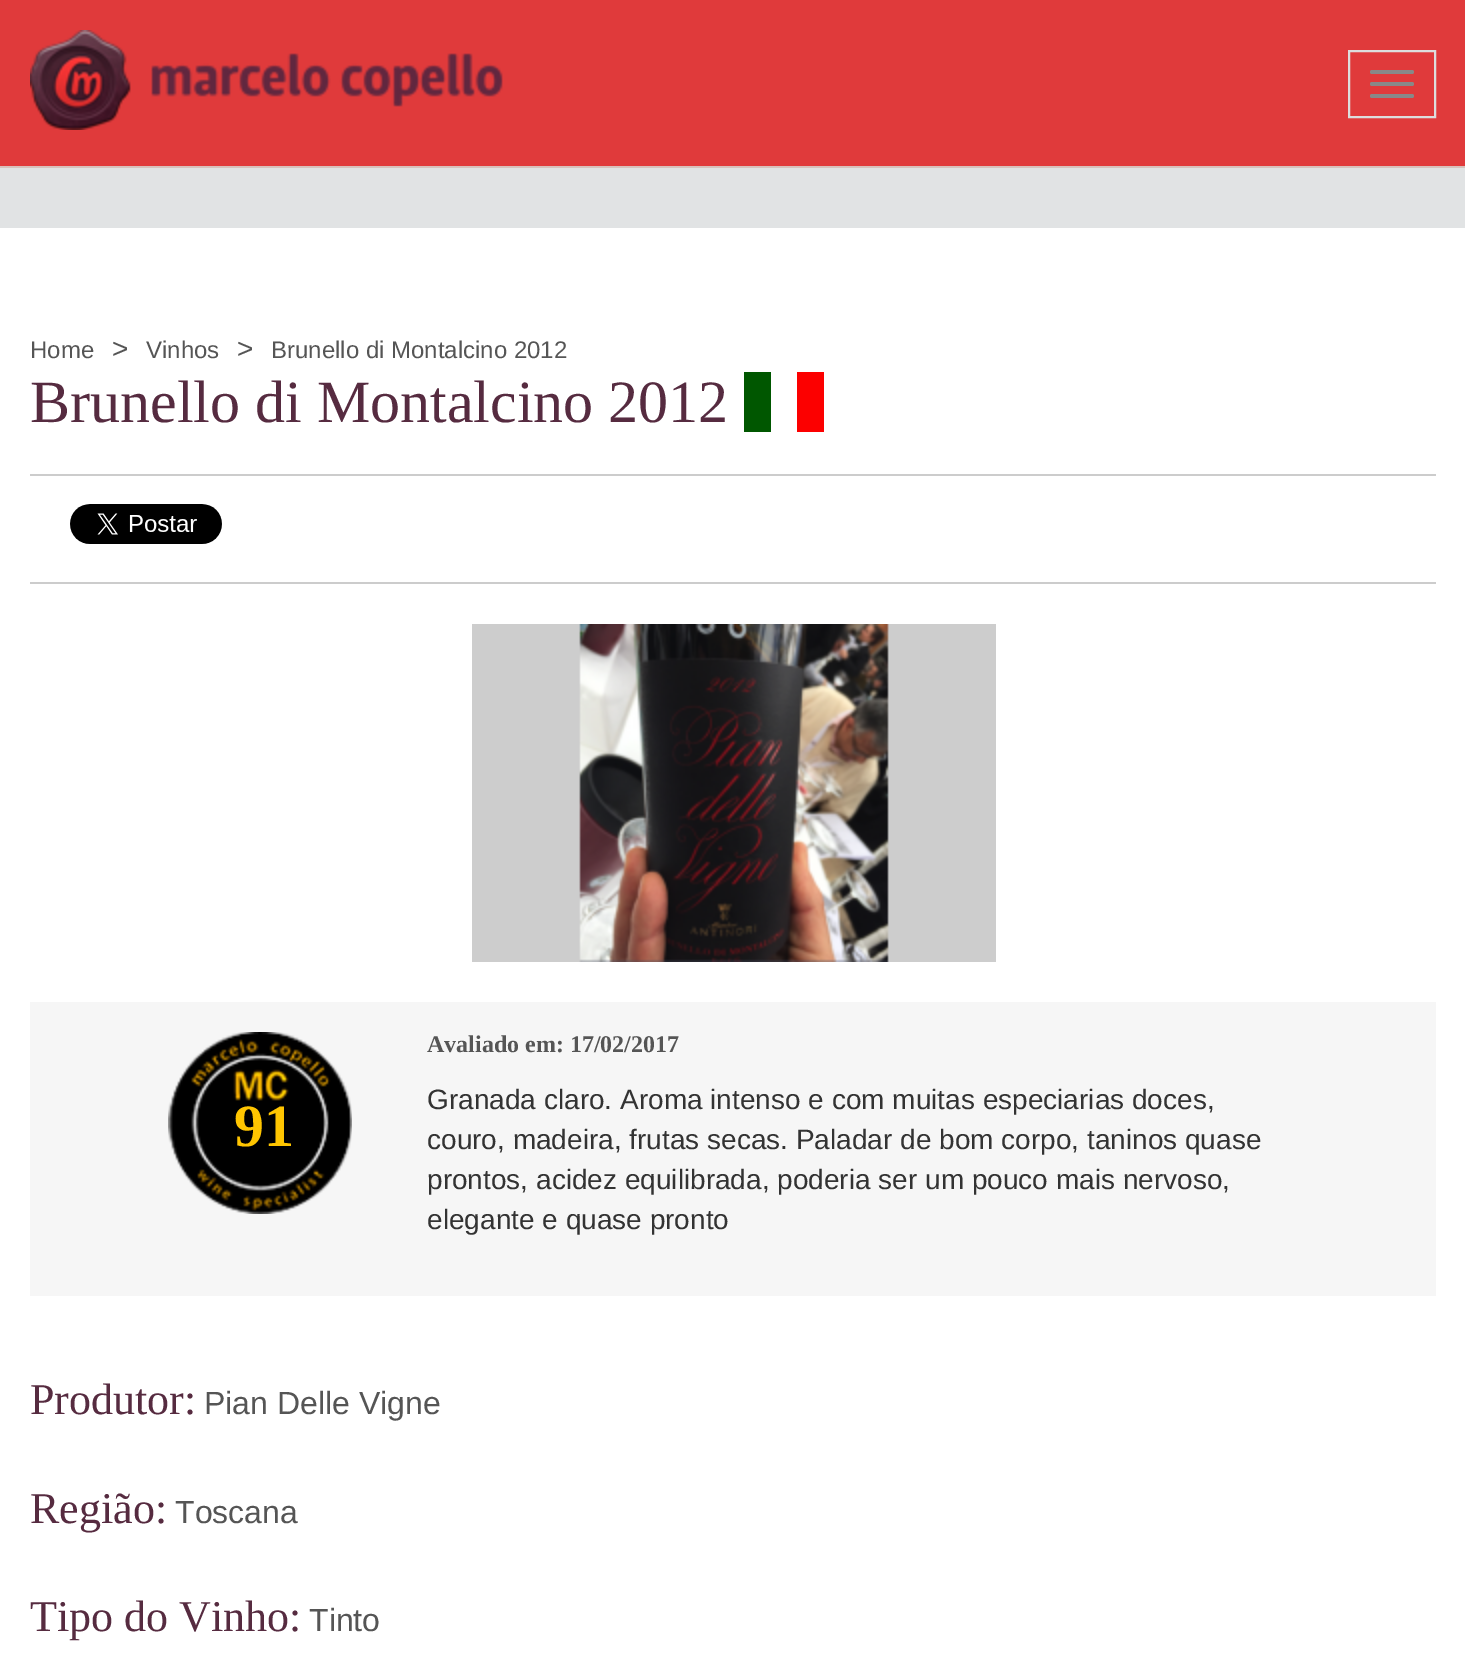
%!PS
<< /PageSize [1465 1660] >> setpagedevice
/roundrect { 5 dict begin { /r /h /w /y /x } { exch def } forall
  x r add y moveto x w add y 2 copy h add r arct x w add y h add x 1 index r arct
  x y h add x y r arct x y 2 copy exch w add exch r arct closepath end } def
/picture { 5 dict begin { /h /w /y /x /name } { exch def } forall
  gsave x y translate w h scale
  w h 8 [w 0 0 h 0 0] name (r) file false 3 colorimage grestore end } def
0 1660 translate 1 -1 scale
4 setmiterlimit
0.882 0.89 0.894 setrgbcolor
0 0 1465 1660 rectfill
0.878 0.227 0.231 setrgbcolor
0 0 1465 166 rectfill
0.847 0.757 0.737 setrgbcolor
0 166 1465 2 rectfill
(img1.rgb) 30 30 473 100 picture
0.867 setgray
2 setlinewidth
1349 51 86 66 rectstroke
0.533 setgray
1370 70 44 4 2 roundrect fill
1370 82 44 4 2 roundrect fill
1370 94 44 4 2 roundrect fill
1 setgray
0 228 1465 1432 rectfill
/LiberationSans-Regular [24 0 0 -24 0 0] selectfont
0.333 setgray
30 358 moveto (Home) show
/LiberationSans-Regular [28 0 0 -28 0 0] selectfont
112 358 moveto (>) show
/LiberationSans-Regular [24 0 0 -24 0 0] selectfont
146 358 moveto (Vinhos) show
/LiberationSans-Regular [28 0 0 -28 0 0] selectfont
237 358 moveto (>) show
/LiberationSans-Regular [24 0 0 -24 0 0] selectfont
271 358 moveto (Brunello di Montalcino 2012) show
/LiberationSerif-Regular [60 0 0 -60 0 0] selectfont
0.337 0.169 0.251 setrgbcolor
30 422 moveto (Brunello di Montalcino 2012) show
0 0.341 0 setrgbcolor
744 372 27 60 rectfill
0.988 0 0 setrgbcolor
797 372 27 60 rectfill
0.8 setgray
30 474 1406 2 rectfill
30 582 1406 2 rectfill
(img2.rgb) 70 504 152 40 picture
(img3.rgb) 472 624 524 338 picture
0.965 setgray
30 1002 1406 294 rectfill
(img4.rgb) 168 1032 184 182 picture
/LiberationSerif-Bold [60 0 0 -60 0 0] selectfont
1 0.773 0 setrgbcolor
234 1146 moveto (91) show
/LiberationSerif-Bold [24 0 0 -24 0 0] selectfont
0.333 setgray
427 1052 moveto (Avaliado em: 17/02/2017) show
/LiberationSans-Regular [28 0 0 -28 0 0] selectfont
0.2 setgray
427 1109 moveto (Granada claro. Aroma intenso e com muitas especiarias doces,) show
427 1149 moveto (couro, madeira, frutas secas. Paladar de bom corpo, taninos quase) show
427 1189 moveto (prontos, acidez equilibrada, poderia ser um pouco mais nervoso,) show
427 1229 moveto (elegante e quase pronto) show
/LiberationSerif-Regular [44 0 0 -44 0 0] selectfont
0.337 0.169 0.251 setrgbcolor
30 1414 moveto (Produtor:) show
/LiberationSans-Regular [32 0 0 -32 0 0] selectfont
0.333 setgray
204 1414 moveto (Pian Delle Vigne) show
/LiberationSerif-Regular [44 0 0 -44 0 0] selectfont
0.337 0.169 0.251 setrgbcolor
30 1523 moveto (Região:) show
/LiberationSans-Regular [32 0 0 -32 0 0] selectfont
0.333 setgray
175 1523 moveto (Toscana) show
/LiberationSerif-Regular [44 0 0 -44 0 0] selectfont
0.337 0.169 0.251 setrgbcolor
30 1631 moveto (Tipo do Vinho:) show
/LiberationSans-Regular [32 0 0 -32 0 0] selectfont
0.333 setgray
309 1631 moveto (Tinto) show
showpage
